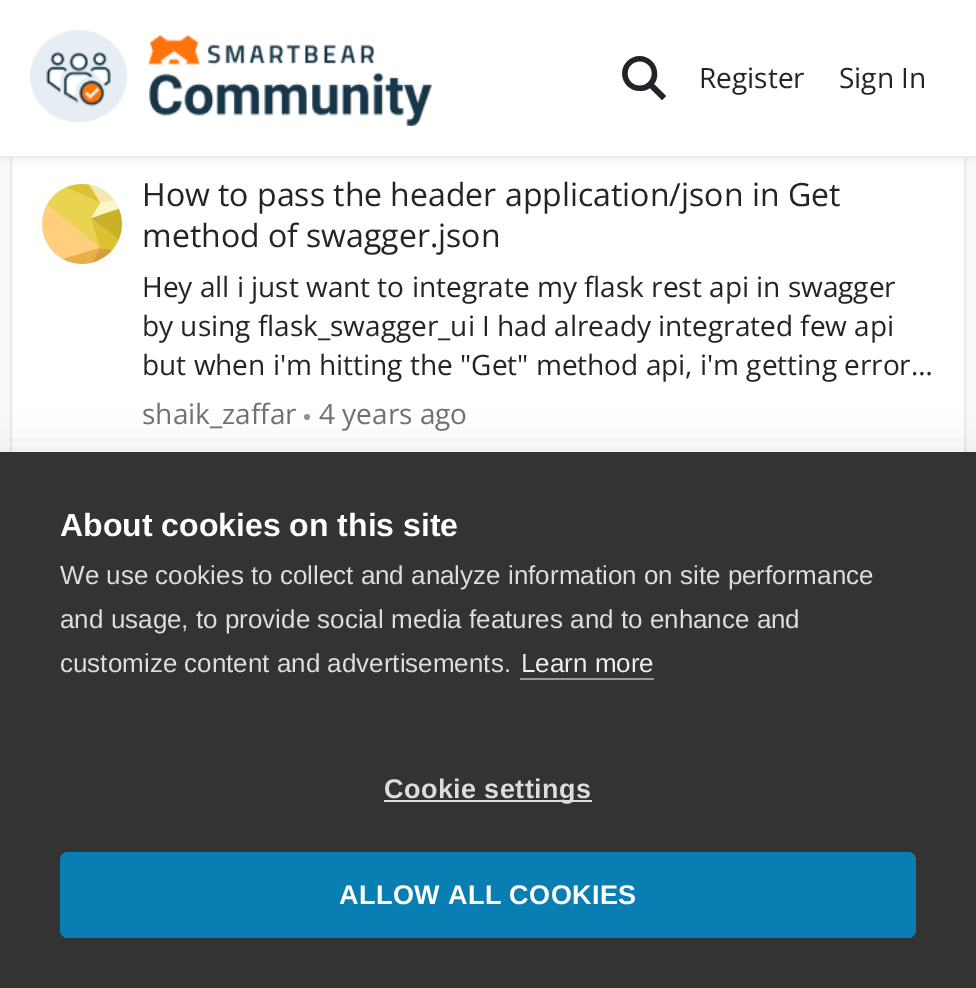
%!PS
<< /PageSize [976 988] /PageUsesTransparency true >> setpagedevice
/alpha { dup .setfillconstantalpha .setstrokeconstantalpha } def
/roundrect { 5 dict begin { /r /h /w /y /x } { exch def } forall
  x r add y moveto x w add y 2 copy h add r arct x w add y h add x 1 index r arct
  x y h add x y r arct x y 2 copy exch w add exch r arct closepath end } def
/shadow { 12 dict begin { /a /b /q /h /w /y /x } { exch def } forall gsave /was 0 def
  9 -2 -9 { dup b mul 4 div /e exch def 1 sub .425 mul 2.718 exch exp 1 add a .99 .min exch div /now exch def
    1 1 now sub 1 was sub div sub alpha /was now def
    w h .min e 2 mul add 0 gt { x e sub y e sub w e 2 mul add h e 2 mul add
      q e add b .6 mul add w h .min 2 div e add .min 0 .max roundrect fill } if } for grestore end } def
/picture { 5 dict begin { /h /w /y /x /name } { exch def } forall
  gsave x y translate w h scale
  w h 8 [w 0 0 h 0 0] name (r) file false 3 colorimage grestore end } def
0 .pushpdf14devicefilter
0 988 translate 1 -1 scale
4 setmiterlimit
0.973 0.98 0.984 setrgbcolor
0 0 976 988 rectfill
1 setgray
12 158 952 294 rectfill
0.922 setgray
2 setlinewidth
11 -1 954 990 rectstroke
0.2 setgray
0 4 976 158 0 4 0.06 shadow
1 setgray
0 0 976 156 rectfill
0.922 setgray
0 156 976 2 rectfill
(img1.rgb) 30 30 403 96 picture
(img2.rgb) 622 56 44 45 picture
/OpenSans-Regular [28 0 0 -28 0 0] selectfont
0.129 0.141 0.161 setrgbcolor
699 88 moveto (Register) show
839 88 moveto (Sign In) show
0.851 setgray
newpath 82 224 40 0 360 arc closepath fill
(img3.rgb) 42 184 80 80 picture
/OpenSans-Regular [32 0 0 -32 0 0] selectfont
0.129 0.141 0.161 setrgbcolor
142 206 moveto (How to pass the header application/json in Get) show
142 247 moveto (method of swagger.json) show
/OpenSans-Regular [28 0 0 -28 0 0] selectfont
142 297 moveto (Hey all i just want to integrate my flask rest api in swagger) show
142 336 moveto (by using flask_swagger_ui I had already integrated few api) show
142 375 moveto (but when i'm hitting the "Get" method api, i'm getting error…) show
0.439 setgray
142 424 moveto (shaik_zaffar) show
0.58 setgray
newpath 307 417 3 0 360 arc closepath fill
0.439 setgray
319 424 moveto (4 years ago) show
0 setgray
0 452 976 536 0 20 0.1 shadow
0.2 setgray
0 452 976 536 rectfill
/LiberationSans-Bold [32 0 0 -32 0 0] selectfont
1 setgray
60 536 moveto (About cookies on this site) show
/LiberationSans-Regular [26 0 0 -26 0 0] selectfont
0.867 setgray
60 584 moveto (We use cookies to collect and analyze information on site performance) show
60 628 moveto (and usage, to provide social media features and to enhance and) show
60 672 moveto (customize content and advertisements.) show
0.933 setgray
521 672 moveto (Learn more) show
0.6 setgray
520 678 134 2 rectfill
0.867 setgray
384 800 208 2 rectfill
/LiberationSans-Bold [27 0 0 -27 0 0] selectfont
384 798 moveto 0.4 0 (Cookie settings) ashow
0.035 0.494 0.698 setrgbcolor
60 852 856 86 8 roundrect fill
1 setgray
339 904 moveto 0.4 0 (ALLOW ALL COOKIES) ashow
.poppdf14devicefilter showpage
